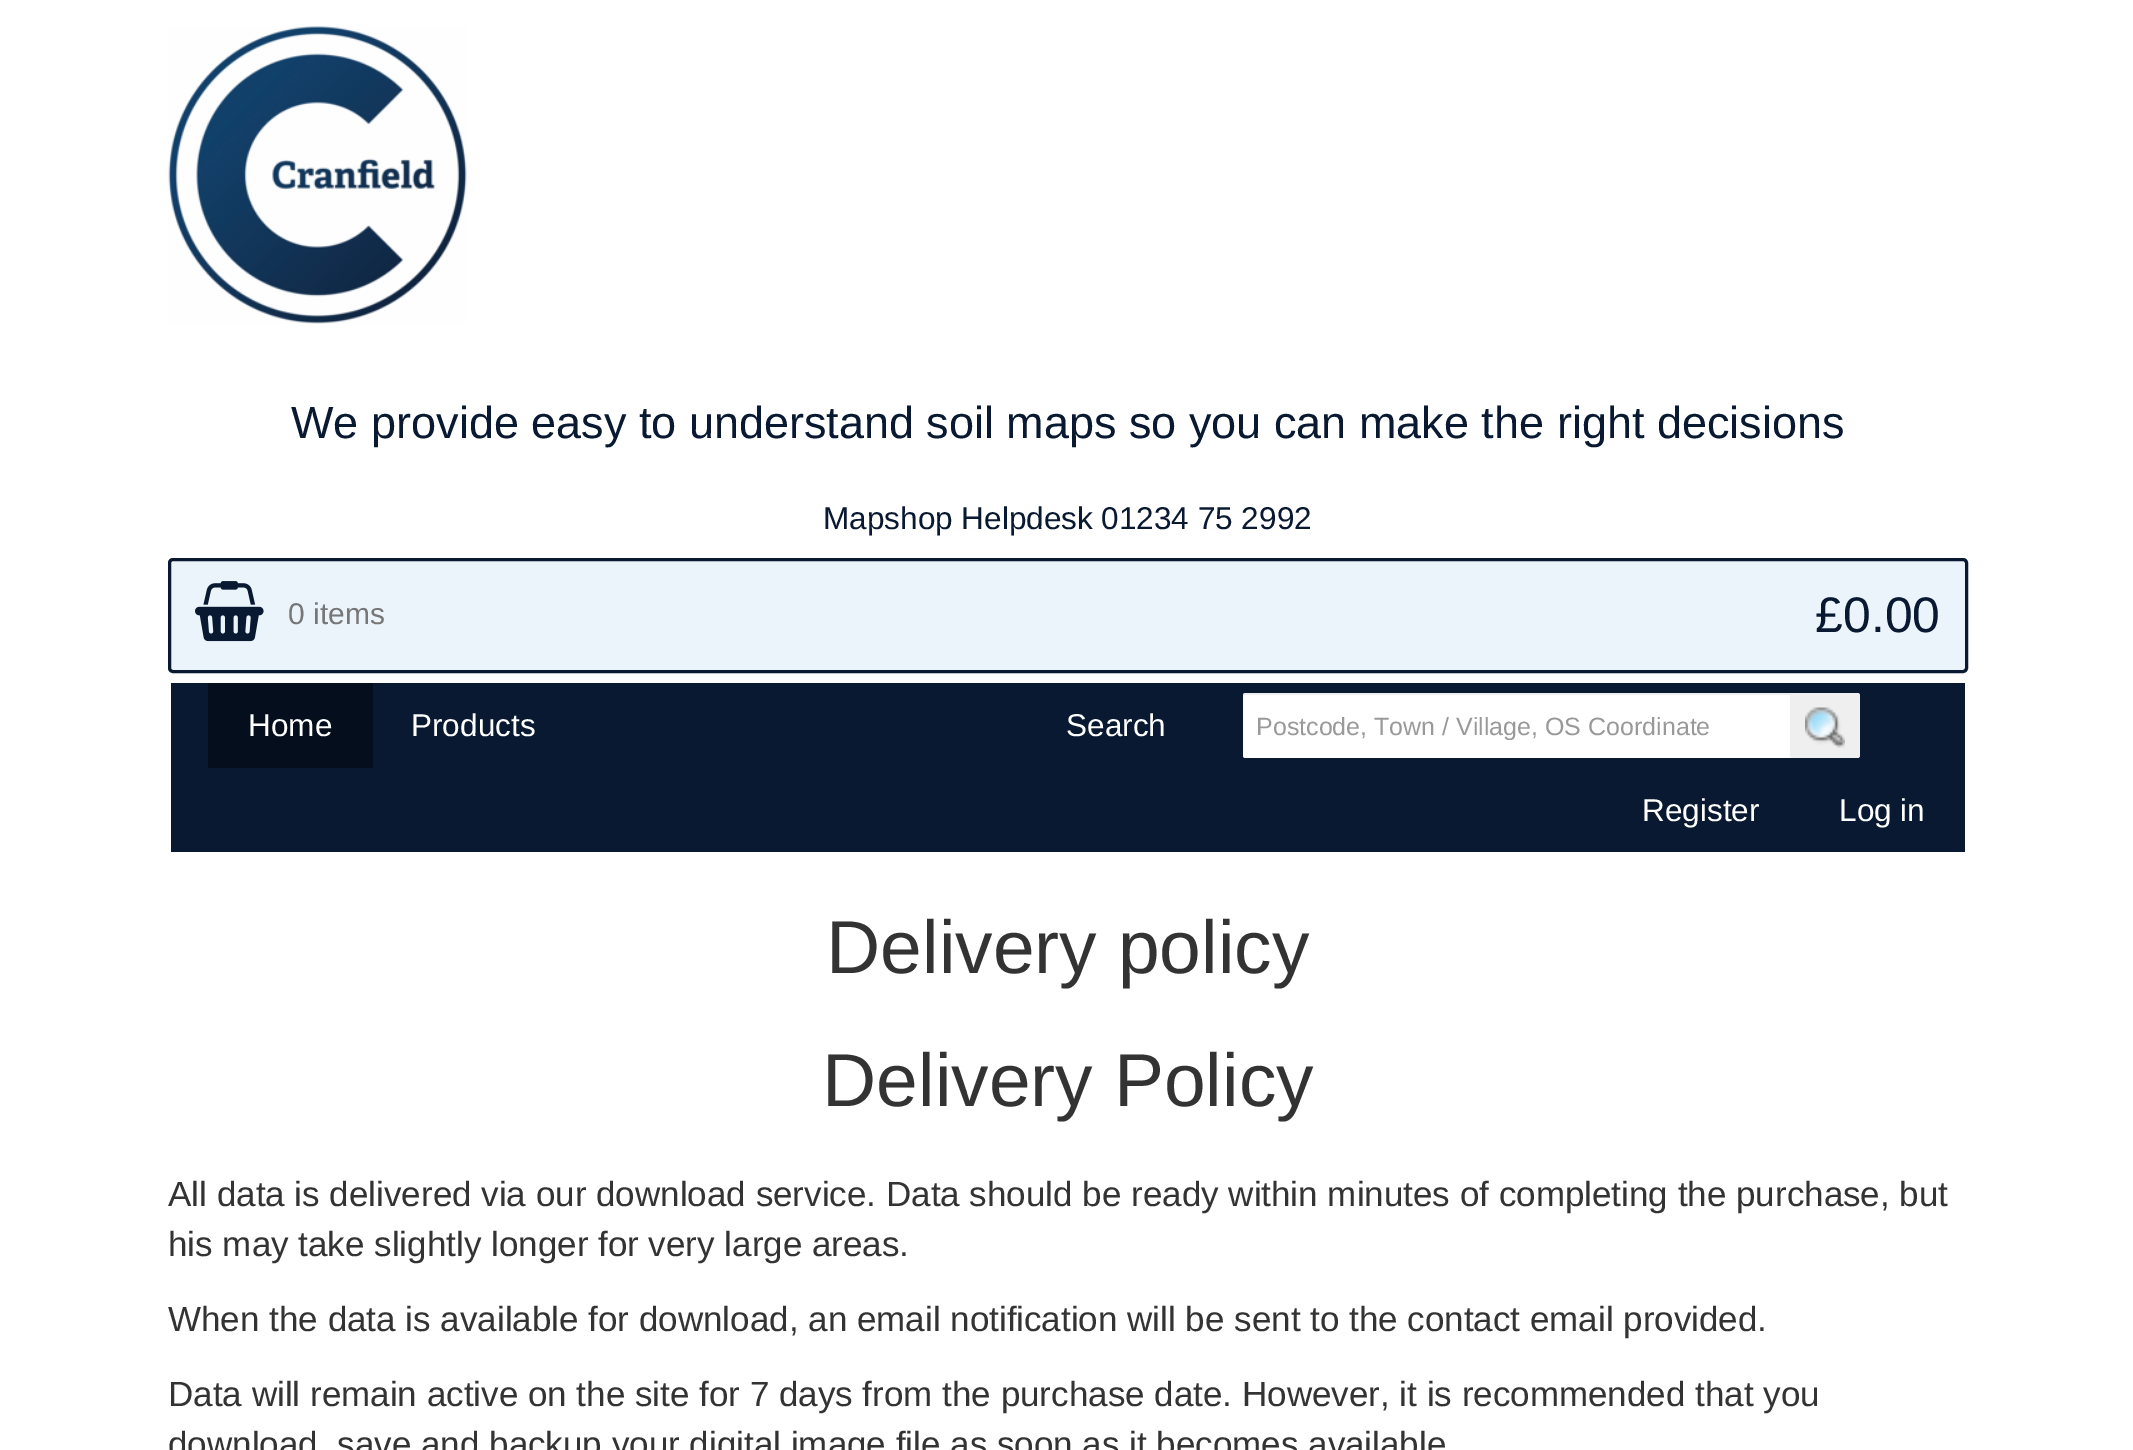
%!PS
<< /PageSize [2133 1450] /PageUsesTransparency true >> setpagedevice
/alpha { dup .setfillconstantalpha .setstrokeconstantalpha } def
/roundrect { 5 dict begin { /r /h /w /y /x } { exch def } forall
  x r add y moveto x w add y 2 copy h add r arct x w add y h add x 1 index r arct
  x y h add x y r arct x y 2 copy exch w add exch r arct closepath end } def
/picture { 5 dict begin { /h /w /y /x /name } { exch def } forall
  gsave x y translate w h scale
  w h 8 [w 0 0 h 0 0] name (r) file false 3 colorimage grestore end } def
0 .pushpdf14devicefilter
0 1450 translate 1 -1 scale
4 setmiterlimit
1 setgray
0 0 2133 1450 rectfill
(img1.rgb) 168 26 299 298 picture
/LiberationSans-Regular [45 0 0 -45 0 0] selectfont
0.035 0.098 0.196 setrgbcolor
291 438 moveto (We provide easy to understand soil maps so you can make the right decisions) show
/LiberationSans-Regular [31.5 0 0 -31.5 0 0] selectfont
823 529 moveto (Mapshop Helpdesk 01234 75 2992) show
0.922 0.957 0.984 setrgbcolor
169.5 559.5 1797 112 3.5 roundrect gsave fill grestore
0.035 0.098 0.196 setrgbcolor
3 setlinewidth
stroke
(img2.rgb) 195 581 69 61 picture
/LiberationSans-Regular [30 0 0 -30 0 0] selectfont
0.467 setgray
288 624 moveto (0 items) show
/LiberationSans-Regular [50 0 0 -50 0 0] selectfont
0.035 0.098 0.196 setrgbcolor
1815 632 moveto (£0.00) show
171 683 1794 169 rectfill
0.02 0.055 0.11 setrgbcolor
208 683 165 85 rectfill
/LiberationSans-Regular [31.5 0 0 -31.5 0 0] selectfont
1 setgray
248 736 moveto (Home) show
411 736 moveto (Products) show
1066 736 moveto (Search) show
newpath 1245.5 693 moveto 1793 693 lineto 1793 758 lineto 1245.5 758 lineto 1244 758 1243 757 1243 755.5 curveto 1243 695.5 lineto 1243 694 1244 693 1245.5 693 curveto closepath fill
0.07 alpha
0 setgray
newpath 1245 695 moveto 1792 695 lineto 1792 758 lineto 1793 758 lineto 1793 693 lineto 1246 693 lineto 1244 693 1243 694 1243 696 curveto closepath fill
gsave
1255 713 515 27 rectclip
/LiberationSans-Regular [25 0 0 -25 0 0] selectfont
1 alpha
0.6 setgray
1256 735 moveto (Postcode, Town / Village, OS Coordinate) show
grestore
1 alpha
0.937 setgray
1790 693 70 65 2.5 roundrect fill
(img3.rgb) 1805 707 40 41 picture
1 setgray
1642 821 moveto (Register) show
1839 821 moveto (Log in) show
/LiberationSans-Regular [75 0 0 -75 0 0] selectfont
0.2 setgray
826 973 moveto (Delivery policy) show
822 1106 moveto (Delivery Policy) show
/LiberationSans-Regular [35 0 0 -35 0 0] selectfont
168 1206 moveto (All data is delivered via our download service. Data should be ready within minutes of completing the purchase, but) show
168 1256 moveto (his may take slightly longer for very large areas.) show
168 1331 moveto (When the data is available for download, an email notification will be sent to the contact email provided.) show
168 1406 moveto (Data will remain active on the site for 7 days from the purchase date. However, it is recommended that you) show
168 1456 moveto (download, save and backup your digital image file as soon as it becomes available) show
.poppdf14devicefilter showpage
